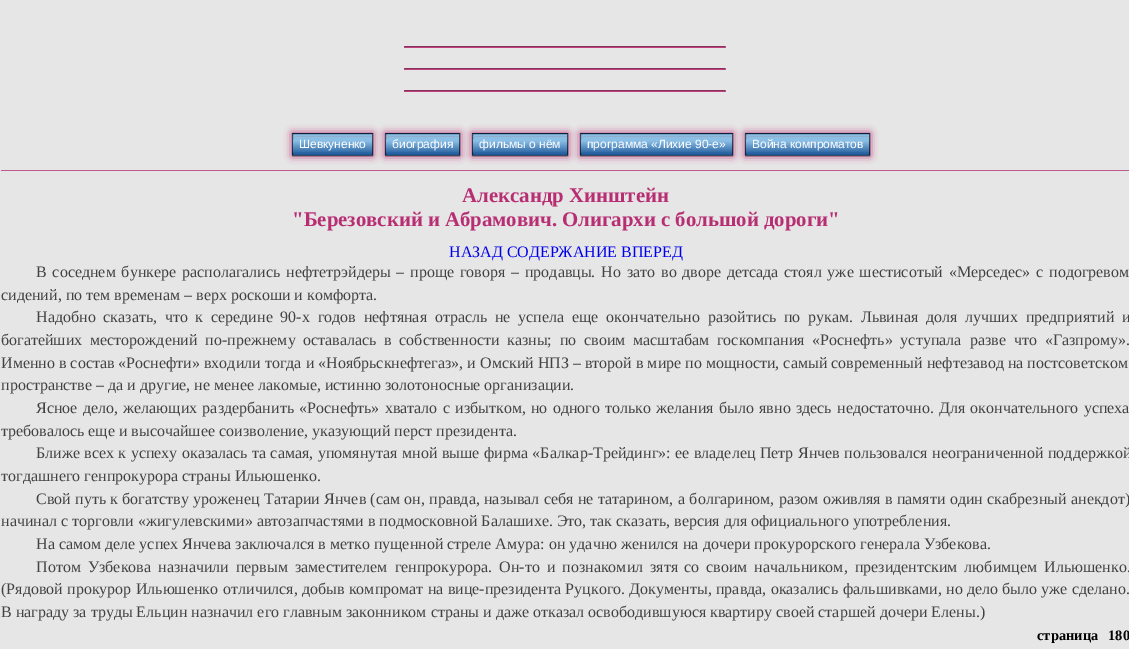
%!PS
<< /PageSize [1129 649] /PageUsesTransparency true >> setpagedevice
/alpha { dup .setfillconstantalpha .setstrokeconstantalpha } def
/roundrect { 5 dict begin { /r /h /w /y /x } { exch def } forall
  x r add y moveto x w add y 2 copy h add r arct x w add y h add x 1 index r arct
  x y h add x y r arct x y 2 copy exch w add exch r arct closepath end } def
/shadow { 12 dict begin { /a /b /q /h /w /y /x } { exch def } forall gsave /was 0 def
  9 -2 -9 { dup b mul 4 div /e exch def 1 sub .425 mul 2.718 exch exp 1 add a .99 .min exch div /now exch def
    1 1 now sub 1 was sub div sub alpha /was now def
    w h .min e 2 mul add 0 gt { x e sub y e sub w e 2 mul add h e 2 mul add
      q e add b .6 mul add w h .min 2 div e add .min 0 .max roundrect fill } if } for grestore end } def
0 .pushpdf14devicefilter
0 649 translate 1 -1 scale
4 setmiterlimit
0.902 setgray
0 0 1129 649 rectfill
0.525 0.2 0.361 setrgbcolor
newpath 404 46 moveto 726 46 lineto 725 47 lineto 405 47 lineto closepath fill
0.9 alpha
0.722 0.18 0.451 setrgbcolor
newpath 726 46 moveto 726 48 lineto 725 47 lineto closepath fill
newpath 726 48 moveto 404 48 lineto 405 47 lineto 725 47 lineto closepath fill
0.482 0.122 0.302 setrgbcolor
newpath 404 48 moveto 404 46 lineto 405 47 lineto closepath fill
1 alpha
0.525 0.2 0.361 setrgbcolor
newpath 404 68 moveto 726 68 lineto 725 69 lineto 405 69 lineto closepath fill
0.9 alpha
0.722 0.18 0.451 setrgbcolor
newpath 726 68 moveto 726 70 lineto 725 69 lineto closepath fill
newpath 726 70 moveto 404 70 lineto 405 69 lineto 725 69 lineto closepath fill
0.482 0.122 0.302 setrgbcolor
newpath 404 70 moveto 404 68 lineto 405 69 lineto closepath fill
1 alpha
0.525 0.2 0.361 setrgbcolor
newpath 404 90 moveto 726 90 lineto 725 91 lineto 405 91 lineto closepath fill
0.9 alpha
0.722 0.18 0.451 setrgbcolor
newpath 726 90 moveto 726 92 lineto 725 91 lineto closepath fill
newpath 726 92 moveto 404 92 lineto 405 91 lineto 725 91 lineto closepath fill
0.482 0.122 0.302 setrgbcolor
newpath 404 92 moveto 404 90 lineto 405 91 lineto closepath fill
1 alpha
0.753 0.349 0.549 setrgbcolor
1 170 1128 1 rectfill
0.722 0.18 0.451 setrgbcolor
292 133 81 23 0 4 1 shadow
gsave newpath 292 133 moveto 373 133 lineto 373 134 lineto 292 134 lineto closepath clip newpath
<< /ShadingType 2 /ColorSpace /DeviceRGB /Coords [333 113 333 134] /Extend [true true] /Function << /FunctionType 3 /Domain [0 1] /Functions [<< /FunctionType 2 /Domain [0 1] /C0 [0.541 0.745 0.898] /C1 [0.541 0.745 0.898] /N 1 >> << /FunctionType 2 /Domain [0 1] /C0 [0.541 0.745 0.898] /C1 [0.118 0.345 0.6] /N 1 >>] /Bounds [0.22] /Encode [0 1 0 1] >> >> shfill grestore
gsave newpath 292 134 moveto 373 134 lineto 373 155 lineto 292 155 lineto closepath clip newpath
<< /ShadingType 2 /ColorSpace /DeviceRGB /Coords [333 134 333 155] /Extend [true true] /Function << /FunctionType 3 /Domain [0 1] /Functions [<< /FunctionType 2 /Domain [0 1] /C0 [0.541 0.745 0.898] /C1 [0.541 0.745 0.898] /N 1 >> << /FunctionType 2 /Domain [0 1] /C0 [0.541 0.745 0.898] /C1 [0.118 0.345 0.6] /N 1 >>] /Bounds [0.22] /Encode [0 1 0 1] >> >> shfill grestore
gsave newpath 292 155 moveto 373 155 lineto 373 156 lineto 292 156 lineto closepath clip newpath
<< /ShadingType 2 /ColorSpace /DeviceRGB /Coords [333 155 333 176] /Extend [true true] /Function << /FunctionType 3 /Domain [0 1] /Functions [<< /FunctionType 2 /Domain [0 1] /C0 [0.541 0.745 0.898] /C1 [0.541 0.745 0.898] /N 1 >> << /FunctionType 2 /Domain [0 1] /C0 [0.541 0.745 0.898] /C1 [0.118 0.345 0.6] /N 1 >>] /Bounds [0.22] /Encode [0 1 0 1] >> >> shfill grestore
0.6 alpha
0 setgray
292.5 133.5 80 22 rectstroke
1 alpha
gsave newpath 293 139 moveto 372 139 lineto 372 153 lineto 293 153 lineto closepath clip newpath
<< /ShadingType 2 /ColorSpace /DeviceRGB /Coords [333 137 333 155] /Extend [true true] /Function << /FunctionType 3 /Domain [0 1] /Functions [<< /FunctionType 2 /Domain [0 1] /C0 [0.541 0.745 0.898] /C1 [0.541 0.745 0.898] /N 1 >> << /FunctionType 2 /Domain [0 1] /C0 [0.541 0.745 0.898] /C1 [0.118 0.345 0.6] /N 1 >>] /Bounds [0.22] /Encode [0 1 0 1] >> >> shfill grestore
0.569 0.682 0.808 setrgbcolor
293 136 79 1 rectfill
/LiberationSans-Regular [12 0 0 -12 0 0] selectfont
1 setgray
299 148 moveto (Шевкуненко) show
0.722 0.18 0.451 setrgbcolor
385 133 75 23 0 4 1 shadow
gsave newpath 385 133 moveto 460 133 lineto 460 134 lineto 385 134 lineto closepath clip newpath
<< /ShadingType 2 /ColorSpace /DeviceRGB /Coords [423 113 423 134] /Extend [true true] /Function << /FunctionType 3 /Domain [0 1] /Functions [<< /FunctionType 2 /Domain [0 1] /C0 [0.541 0.745 0.898] /C1 [0.541 0.745 0.898] /N 1 >> << /FunctionType 2 /Domain [0 1] /C0 [0.541 0.745 0.898] /C1 [0.118 0.345 0.6] /N 1 >>] /Bounds [0.22] /Encode [0 1 0 1] >> >> shfill grestore
gsave newpath 385 134 moveto 460 134 lineto 460 155 lineto 385 155 lineto closepath clip newpath
<< /ShadingType 2 /ColorSpace /DeviceRGB /Coords [423 134 423 155] /Extend [true true] /Function << /FunctionType 3 /Domain [0 1] /Functions [<< /FunctionType 2 /Domain [0 1] /C0 [0.541 0.745 0.898] /C1 [0.541 0.745 0.898] /N 1 >> << /FunctionType 2 /Domain [0 1] /C0 [0.541 0.745 0.898] /C1 [0.118 0.345 0.6] /N 1 >>] /Bounds [0.22] /Encode [0 1 0 1] >> >> shfill grestore
gsave newpath 385 155 moveto 460 155 lineto 460 156 lineto 385 156 lineto closepath clip newpath
<< /ShadingType 2 /ColorSpace /DeviceRGB /Coords [423 155 423 176] /Extend [true true] /Function << /FunctionType 3 /Domain [0 1] /Functions [<< /FunctionType 2 /Domain [0 1] /C0 [0.541 0.745 0.898] /C1 [0.541 0.745 0.898] /N 1 >> << /FunctionType 2 /Domain [0 1] /C0 [0.541 0.745 0.898] /C1 [0.118 0.345 0.6] /N 1 >>] /Bounds [0.22] /Encode [0 1 0 1] >> >> shfill grestore
0.6 alpha
0 setgray
385.5 133.5 74 22 rectstroke
1 alpha
gsave newpath 386 139 moveto 459 139 lineto 459 153 lineto 386 153 lineto closepath clip newpath
<< /ShadingType 2 /ColorSpace /DeviceRGB /Coords [423 137 423 155] /Extend [true true] /Function << /FunctionType 3 /Domain [0 1] /Functions [<< /FunctionType 2 /Domain [0 1] /C0 [0.541 0.745 0.898] /C1 [0.541 0.745 0.898] /N 1 >> << /FunctionType 2 /Domain [0 1] /C0 [0.541 0.745 0.898] /C1 [0.118 0.345 0.6] /N 1 >>] /Bounds [0.22] /Encode [0 1 0 1] >> >> shfill grestore
0.569 0.682 0.808 setrgbcolor
386 136 73 1 rectfill
1 setgray
392 148 moveto (биография) show
0.722 0.18 0.451 setrgbcolor
472 133 96 23 0 4 1 shadow
gsave newpath 472 133 moveto 568 133 lineto 568 134 lineto 472 134 lineto closepath clip newpath
<< /ShadingType 2 /ColorSpace /DeviceRGB /Coords [520 113 520 134] /Extend [true true] /Function << /FunctionType 3 /Domain [0 1] /Functions [<< /FunctionType 2 /Domain [0 1] /C0 [0.541 0.745 0.898] /C1 [0.541 0.745 0.898] /N 1 >> << /FunctionType 2 /Domain [0 1] /C0 [0.541 0.745 0.898] /C1 [0.118 0.345 0.6] /N 1 >>] /Bounds [0.22] /Encode [0 1 0 1] >> >> shfill grestore
gsave newpath 472 134 moveto 568 134 lineto 568 155 lineto 472 155 lineto closepath clip newpath
<< /ShadingType 2 /ColorSpace /DeviceRGB /Coords [520 134 520 155] /Extend [true true] /Function << /FunctionType 3 /Domain [0 1] /Functions [<< /FunctionType 2 /Domain [0 1] /C0 [0.541 0.745 0.898] /C1 [0.541 0.745 0.898] /N 1 >> << /FunctionType 2 /Domain [0 1] /C0 [0.541 0.745 0.898] /C1 [0.118 0.345 0.6] /N 1 >>] /Bounds [0.22] /Encode [0 1 0 1] >> >> shfill grestore
gsave newpath 472 155 moveto 568 155 lineto 568 156 lineto 472 156 lineto closepath clip newpath
<< /ShadingType 2 /ColorSpace /DeviceRGB /Coords [520 155 520 176] /Extend [true true] /Function << /FunctionType 3 /Domain [0 1] /Functions [<< /FunctionType 2 /Domain [0 1] /C0 [0.541 0.745 0.898] /C1 [0.541 0.745 0.898] /N 1 >> << /FunctionType 2 /Domain [0 1] /C0 [0.541 0.745 0.898] /C1 [0.118 0.345 0.6] /N 1 >>] /Bounds [0.22] /Encode [0 1 0 1] >> >> shfill grestore
0.6 alpha
0 setgray
472.5 133.5 95 22 rectstroke
1 alpha
gsave newpath 473 139 moveto 567 139 lineto 567 153 lineto 473 153 lineto closepath clip newpath
<< /ShadingType 2 /ColorSpace /DeviceRGB /Coords [520 137 520 155] /Extend [true true] /Function << /FunctionType 3 /Domain [0 1] /Functions [<< /FunctionType 2 /Domain [0 1] /C0 [0.541 0.745 0.898] /C1 [0.541 0.745 0.898] /N 1 >> << /FunctionType 2 /Domain [0 1] /C0 [0.541 0.745 0.898] /C1 [0.118 0.345 0.6] /N 1 >>] /Bounds [0.22] /Encode [0 1 0 1] >> >> shfill grestore
0.569 0.682 0.808 setrgbcolor
473 136 94 1 rectfill
1 setgray
479 148 moveto (фильмы о нём) show
0.722 0.18 0.451 setrgbcolor
580 133 153 23 0 4 1 shadow
gsave newpath 580 133 moveto 733 133 lineto 733 134 lineto 580 134 lineto closepath clip newpath
<< /ShadingType 2 /ColorSpace /DeviceRGB /Coords [657 113 657 134] /Extend [true true] /Function << /FunctionType 3 /Domain [0 1] /Functions [<< /FunctionType 2 /Domain [0 1] /C0 [0.541 0.745 0.898] /C1 [0.541 0.745 0.898] /N 1 >> << /FunctionType 2 /Domain [0 1] /C0 [0.541 0.745 0.898] /C1 [0.118 0.345 0.6] /N 1 >>] /Bounds [0.22] /Encode [0 1 0 1] >> >> shfill grestore
gsave newpath 580 134 moveto 733 134 lineto 733 155 lineto 580 155 lineto closepath clip newpath
<< /ShadingType 2 /ColorSpace /DeviceRGB /Coords [657 134 657 155] /Extend [true true] /Function << /FunctionType 3 /Domain [0 1] /Functions [<< /FunctionType 2 /Domain [0 1] /C0 [0.541 0.745 0.898] /C1 [0.541 0.745 0.898] /N 1 >> << /FunctionType 2 /Domain [0 1] /C0 [0.541 0.745 0.898] /C1 [0.118 0.345 0.6] /N 1 >>] /Bounds [0.22] /Encode [0 1 0 1] >> >> shfill grestore
gsave newpath 580 155 moveto 733 155 lineto 733 156 lineto 580 156 lineto closepath clip newpath
<< /ShadingType 2 /ColorSpace /DeviceRGB /Coords [657 155 657 176] /Extend [true true] /Function << /FunctionType 3 /Domain [0 1] /Functions [<< /FunctionType 2 /Domain [0 1] /C0 [0.541 0.745 0.898] /C1 [0.541 0.745 0.898] /N 1 >> << /FunctionType 2 /Domain [0 1] /C0 [0.541 0.745 0.898] /C1 [0.118 0.345 0.6] /N 1 >>] /Bounds [0.22] /Encode [0 1 0 1] >> >> shfill grestore
0.6 alpha
0 setgray
580.5 133.5 152 22 rectstroke
1 alpha
gsave newpath 581 139 moveto 732 139 lineto 732 153 lineto 581 153 lineto closepath clip newpath
<< /ShadingType 2 /ColorSpace /DeviceRGB /Coords [657 137 657 155] /Extend [true true] /Function << /FunctionType 3 /Domain [0 1] /Functions [<< /FunctionType 2 /Domain [0 1] /C0 [0.541 0.745 0.898] /C1 [0.541 0.745 0.898] /N 1 >> << /FunctionType 2 /Domain [0 1] /C0 [0.541 0.745 0.898] /C1 [0.118 0.345 0.6] /N 1 >>] /Bounds [0.22] /Encode [0 1 0 1] >> >> shfill grestore
0.569 0.682 0.808 setrgbcolor
581 136 151 1 rectfill
1 setgray
587 148 moveto (программа «Лихие 90-е») show
0.722 0.18 0.451 setrgbcolor
745 133 125 23 0 4 1 shadow
gsave newpath 745 133 moveto 870 133 lineto 870 134 lineto 745 134 lineto closepath clip newpath
<< /ShadingType 2 /ColorSpace /DeviceRGB /Coords [808 113 808 134] /Extend [true true] /Function << /FunctionType 3 /Domain [0 1] /Functions [<< /FunctionType 2 /Domain [0 1] /C0 [0.541 0.745 0.898] /C1 [0.541 0.745 0.898] /N 1 >> << /FunctionType 2 /Domain [0 1] /C0 [0.541 0.745 0.898] /C1 [0.118 0.345 0.6] /N 1 >>] /Bounds [0.22] /Encode [0 1 0 1] >> >> shfill grestore
gsave newpath 745 134 moveto 870 134 lineto 870 155 lineto 745 155 lineto closepath clip newpath
<< /ShadingType 2 /ColorSpace /DeviceRGB /Coords [808 134 808 155] /Extend [true true] /Function << /FunctionType 3 /Domain [0 1] /Functions [<< /FunctionType 2 /Domain [0 1] /C0 [0.541 0.745 0.898] /C1 [0.541 0.745 0.898] /N 1 >> << /FunctionType 2 /Domain [0 1] /C0 [0.541 0.745 0.898] /C1 [0.118 0.345 0.6] /N 1 >>] /Bounds [0.22] /Encode [0 1 0 1] >> >> shfill grestore
gsave newpath 745 155 moveto 870 155 lineto 870 156 lineto 745 156 lineto closepath clip newpath
<< /ShadingType 2 /ColorSpace /DeviceRGB /Coords [808 155 808 176] /Extend [true true] /Function << /FunctionType 3 /Domain [0 1] /Functions [<< /FunctionType 2 /Domain [0 1] /C0 [0.541 0.745 0.898] /C1 [0.541 0.745 0.898] /N 1 >> << /FunctionType 2 /Domain [0 1] /C0 [0.541 0.745 0.898] /C1 [0.118 0.345 0.6] /N 1 >>] /Bounds [0.22] /Encode [0 1 0 1] >> >> shfill grestore
0.6 alpha
0 setgray
745.5 133.5 124 22 rectstroke
1 alpha
gsave newpath 746 139 moveto 869 139 lineto 869 153 lineto 746 153 lineto closepath clip newpath
<< /ShadingType 2 /ColorSpace /DeviceRGB /Coords [808 137 808 155] /Extend [true true] /Function << /FunctionType 3 /Domain [0 1] /Functions [<< /FunctionType 2 /Domain [0 1] /C0 [0.541 0.745 0.898] /C1 [0.541 0.745 0.898] /N 1 >> << /FunctionType 2 /Domain [0 1] /C0 [0.541 0.745 0.898] /C1 [0.118 0.345 0.6] /N 1 >>] /Bounds [0.22] /Encode [0 1 0 1] >> >> shfill grestore
0.569 0.682 0.808 setrgbcolor
746 136 123 1 rectfill
1 setgray
752 148 moveto (Война компроматов) show
/LiberationSerif-Bold [20.8 0 0 -20.8 0 0] selectfont
0.722 0.18 0.451 setrgbcolor
462 202 moveto (Александр Хинштейн) show
292 226 moveto ("Березовский и Абрамович. Олигархи с большой дороги") show
/LiberationSerif-Regular [16 0 0 -16 0 0] selectfont
0 0 0.933 setrgbcolor
449 257 moveto (НАЗАД СОДЕРЖАНИЕ ВПЕРЕД) show
0.259 setgray
36 277 moveto 1.75 0 32 (В соседнем бункере располагались нефтетрэйдеры – проще говоря – продавцы. Но зато) widthshow
661 277 moveto 1.75 0 32 (во дворе детсада стоял уже шестисотый «Мерседес» с подогревом) widthshow
1 300 moveto (сидений, по тем временам – верх роскоши и комфорта.) show
36 322 moveto 3.75 0 32 (Надобно сказать, что к середине 90-х годов нефтяная отрасль не успела еще окончательно) widthshow
708 322 moveto 3.75 0 32 (разойтись по рукам. Львиная доля лучших предприятий и) widthshow
1 345 moveto 3.75 0 32 (богатейших месторождений по-прежнему) widthshow
303 345 moveto 3.75 0 32 (оставалась в собственности казны; по своим масштабам госкомпания «Роснефть» уступала) widthshow
970 345 moveto 3.75 0 32 (разве что «Газпрому».) widthshow
1 368 moveto (Именно в состав «Роснефти» входили тогда и «Ноябрьскнефтегаз», и Омский НПЗ – второй в мире по мощности, самый современный нефтезавод на постсоветском) show
1 390 moveto (пространстве – да и другие, не менее лакомые, истинно золотоносные организации.) show
36 413 moveto 1.25 0 32 (Ясное дело, желающих раздербанить «Роснефть» хватало с избытком, но одного только) widthshow
656 413 moveto 1.25 0 32 (желания было явно здесь недостаточно. Для окончательного успеха) widthshow
1 436 moveto (требовалось еще и высочайшее соизволение, указующий перст президента.) show
36 458 moveto 0.4 0 32 (Ближе всех к успеху оказалась та самая, упомянутая мной выше фирма «Балкар-Трейдинг»:) widthshow
675 458 moveto 0.5 0 32 (ее владелец Петр Янчев пользовался неограниченной поддержкой) widthshow
1 481 moveto (тогдашнего генпрокурора страны Ильюшенко.) show
36 504 moveto 0.3 0 32 (Свой путь к богатству уроженец Татарии Янчев \(сам он, правда, называл себя не татарином,) widthshow
678 504 moveto 0.3 0 32 (а болгарином, разом оживляя в памяти один скабрезный анекдот\)) widthshow
1 526 moveto (начинал с торговли «жигулевскими» автозапчастями в подмосковной Балашихе. Это, так сказать, версия для официального употребления.) show
36 549 moveto (На самом деле успех Янчева заключался в метко пущенной стреле Амура: он удачно женился на дочери прокурорского генерала Узбекова.) show
36 572 moveto 3 0 32 (Потом Узбекова назначили первым заместителем генпрокурора. Он-то и познакомил зятя) widthshow
684 572 moveto 3 0 32 (со своим начальником, президентским любимцем Ильюшенко.) widthshow
1 594 moveto 0.25 0 32 (\(Рядовой прокурор Ильюшенко) widthshow
223 594 moveto 0.25 0 32 (отличился, добыв компромат на вице-президента Руцкого. Документы, правда, оказались) widthshow
843 594 moveto 0.25 0 32 (фальшивками, но дело было уже сделано.) widthshow
1 617 moveto (В награду за труды Ельцин назначил его главным законником страны и даже отказал освободившуюся квартиру своей старшей дочери Елены.\)) show
/LiberationSerif-Bold [14.5 0 0 -14.5 0 0] selectfont
0 setgray
1037 640 moveto (страница) show
1108 640 moveto (180) show
.poppdf14devicefilter showpage
